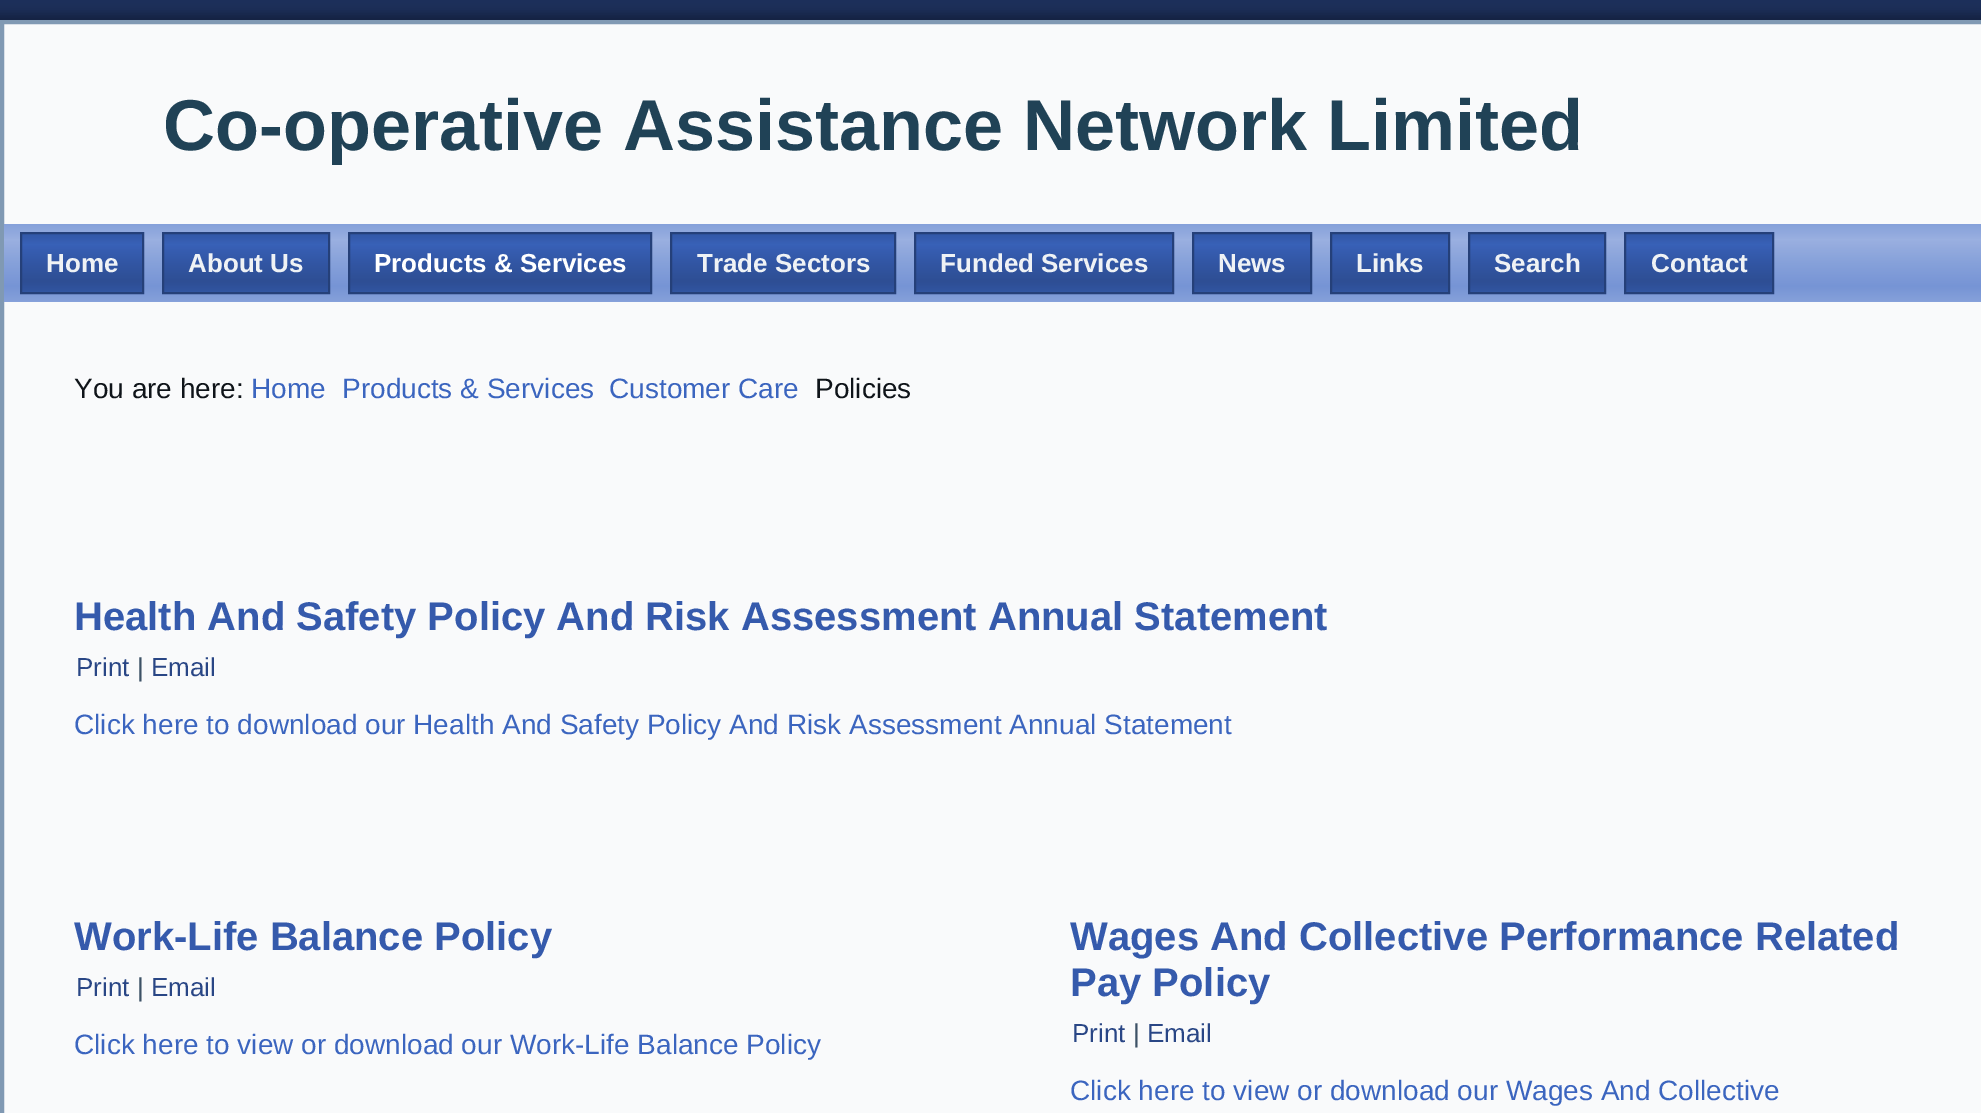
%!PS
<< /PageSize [1981 1113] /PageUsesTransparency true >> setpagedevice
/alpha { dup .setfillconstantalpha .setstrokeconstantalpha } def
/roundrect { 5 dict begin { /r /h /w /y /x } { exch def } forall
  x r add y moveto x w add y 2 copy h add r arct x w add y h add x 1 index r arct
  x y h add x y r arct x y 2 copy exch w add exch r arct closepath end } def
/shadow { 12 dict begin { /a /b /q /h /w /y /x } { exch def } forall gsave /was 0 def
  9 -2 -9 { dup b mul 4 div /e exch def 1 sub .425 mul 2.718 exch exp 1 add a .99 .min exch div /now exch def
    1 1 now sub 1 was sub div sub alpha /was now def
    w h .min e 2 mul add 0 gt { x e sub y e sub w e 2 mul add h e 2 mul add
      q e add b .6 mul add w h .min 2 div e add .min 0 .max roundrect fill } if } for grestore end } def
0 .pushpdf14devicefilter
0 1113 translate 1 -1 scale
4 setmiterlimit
0.11 0.184 0.353 setrgbcolor
0 0 1981 1113 rectfill
0 setgray
-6 14 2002 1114 0 5 0.3 shadow
0.976 0.98 0.984 setrgbcolor
newpath 2 22 moveto 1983 22 lineto 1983 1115 lineto 2 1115 lineto closepath gsave fill grestore
0.502 0.6 0.702 setrgbcolor
4 setlinewidth
stroke
/LiberationSans-Bold [72 0 0 -72 0 0] selectfont
0.125 0.259 0.337 setrgbcolor
163 150 moveto (Co-operative Assistance Network Limited) show
gsave newpath 4 224 moveto 1981 224 lineto 1981 302 lineto 4 302 lineto closepath clip newpath
<< /ShadingType 2 /ColorSpace /DeviceRGB /Coords [1000 224 1000 302] /Extend [true true] /Function << /FunctionType 3 /Domain [0 1] /Functions [<< /FunctionType 2 /Domain [0 1] /C0 [0.525 0.631 0.855] /C1 [0.604 0.69 0.878] /N 1 >> << /FunctionType 2 /Domain [0 1] /C0 [0.604 0.69 0.878] /C1 [0.525 0.631 0.855] /N 1 >> << /FunctionType 2 /Domain [0 1] /C0 [0.525 0.631 0.855] /C1 [0.463 0.58 0.835] /N 1 >> << /FunctionType 2 /Domain [0 1] /C0 [0.463 0.58 0.835] /C1 [0.525 0.631 0.855] /N 1 >>] /Bounds [0.2 0.5 0.8] /Encode [0 1 0 1 0 1 0 1] >> >> shfill grestore
gsave newpath 22 234 moveto 142 234 lineto 142 292 lineto 22 292 lineto closepath clip newpath
<< /ShadingType 2 /ColorSpace /DeviceRGB /Coords [82 232 82 294] /Extend [true true] /Function << /FunctionType 3 /Domain [0 1] /Functions [<< /FunctionType 2 /Domain [0 1] /C0 [0.196 0.337 0.643] /C1 [0.22 0.38 0.718] /N 1 >> << /FunctionType 2 /Domain [0 1] /C0 [0.22 0.38 0.718] /C1 [0.196 0.337 0.643] /N 1 >> << /FunctionType 2 /Domain [0 1] /C0 [0.196 0.337 0.643] /C1 [0.18 0.306 0.58] /N 1 >> << /FunctionType 2 /Domain [0 1] /C0 [0.18 0.306 0.58] /C1 [0.196 0.337 0.643] /N 1 >>] /Bounds [0.2 0.5 0.8] /Encode [0 1 0 1 0 1 0 1] >> >> shfill grestore
0.145 0.251 0.475 setrgbcolor
2 setlinewidth
21 233 122 60 rectstroke
/LiberationSans-Bold [26 0 0 -26 0 0] selectfont
0.937 0.949 0.961 setrgbcolor
46 272 moveto (Home) show
gsave newpath 164 234 moveto 328 234 lineto 328 292 lineto 164 292 lineto closepath clip newpath
<< /ShadingType 2 /ColorSpace /DeviceRGB /Coords [246 232 246 294] /Extend [true true] /Function << /FunctionType 3 /Domain [0 1] /Functions [<< /FunctionType 2 /Domain [0 1] /C0 [0.196 0.337 0.643] /C1 [0.22 0.38 0.718] /N 1 >> << /FunctionType 2 /Domain [0 1] /C0 [0.22 0.38 0.718] /C1 [0.196 0.337 0.643] /N 1 >> << /FunctionType 2 /Domain [0 1] /C0 [0.196 0.337 0.643] /C1 [0.18 0.306 0.58] /N 1 >> << /FunctionType 2 /Domain [0 1] /C0 [0.18 0.306 0.58] /C1 [0.196 0.337 0.643] /N 1 >>] /Bounds [0.2 0.5 0.8] /Encode [0 1 0 1 0 1 0 1] >> >> shfill grestore
0.145 0.251 0.475 setrgbcolor
163 233 166 60 rectstroke
0.937 0.949 0.961 setrgbcolor
188 272 moveto (About Us) show
gsave newpath 350 234 moveto 650 234 lineto 650 292 lineto 350 292 lineto closepath clip newpath
<< /ShadingType 2 /ColorSpace /DeviceRGB /Coords [500 232 500 294] /Extend [true true] /Function << /FunctionType 3 /Domain [0 1] /Functions [<< /FunctionType 2 /Domain [0 1] /C0 [0.196 0.337 0.643] /C1 [0.22 0.38 0.718] /N 1 >> << /FunctionType 2 /Domain [0 1] /C0 [0.22 0.38 0.718] /C1 [0.196 0.337 0.643] /N 1 >> << /FunctionType 2 /Domain [0 1] /C0 [0.196 0.337 0.643] /C1 [0.18 0.306 0.58] /N 1 >> << /FunctionType 2 /Domain [0 1] /C0 [0.18 0.306 0.58] /C1 [0.196 0.337 0.643] /N 1 >>] /Bounds [0.2 0.5 0.8] /Encode [0 1 0 1 0 1 0 1] >> >> shfill grestore
0.145 0.251 0.475 setrgbcolor
349 233 302 60 rectstroke
1 setgray
374 272 moveto (Products & Services) show
gsave newpath 672 234 moveto 894 234 lineto 894 292 lineto 672 292 lineto closepath clip newpath
<< /ShadingType 2 /ColorSpace /DeviceRGB /Coords [783 232 783 294] /Extend [true true] /Function << /FunctionType 3 /Domain [0 1] /Functions [<< /FunctionType 2 /Domain [0 1] /C0 [0.196 0.337 0.643] /C1 [0.22 0.38 0.718] /N 1 >> << /FunctionType 2 /Domain [0 1] /C0 [0.22 0.38 0.718] /C1 [0.196 0.337 0.643] /N 1 >> << /FunctionType 2 /Domain [0 1] /C0 [0.196 0.337 0.643] /C1 [0.18 0.306 0.58] /N 1 >> << /FunctionType 2 /Domain [0 1] /C0 [0.18 0.306 0.58] /C1 [0.196 0.337 0.643] /N 1 >>] /Bounds [0.2 0.5 0.8] /Encode [0 1 0 1 0 1 0 1] >> >> shfill grestore
0.145 0.251 0.475 setrgbcolor
671 233 224 60 rectstroke
0.937 0.949 0.961 setrgbcolor
697 272 moveto (Trade Sectors) show
gsave newpath 916 234 moveto 1172 234 lineto 1172 292 lineto 916 292 lineto closepath clip newpath
<< /ShadingType 2 /ColorSpace /DeviceRGB /Coords [1044 232 1044 294] /Extend [true true] /Function << /FunctionType 3 /Domain [0 1] /Functions [<< /FunctionType 2 /Domain [0 1] /C0 [0.196 0.337 0.643] /C1 [0.22 0.38 0.718] /N 1 >> << /FunctionType 2 /Domain [0 1] /C0 [0.22 0.38 0.718] /C1 [0.196 0.337 0.643] /N 1 >> << /FunctionType 2 /Domain [0 1] /C0 [0.196 0.337 0.643] /C1 [0.18 0.306 0.58] /N 1 >> << /FunctionType 2 /Domain [0 1] /C0 [0.18 0.306 0.58] /C1 [0.196 0.337 0.643] /N 1 >>] /Bounds [0.2 0.5 0.8] /Encode [0 1 0 1 0 1 0 1] >> >> shfill grestore
0.145 0.251 0.475 setrgbcolor
915 233 258 60 rectstroke
0.937 0.949 0.961 setrgbcolor
940 272 moveto (Funded Services) show
gsave newpath 1194 234 moveto 1310 234 lineto 1310 292 lineto 1194 292 lineto closepath clip newpath
<< /ShadingType 2 /ColorSpace /DeviceRGB /Coords [1252 232 1252 294] /Extend [true true] /Function << /FunctionType 3 /Domain [0 1] /Functions [<< /FunctionType 2 /Domain [0 1] /C0 [0.196 0.337 0.643] /C1 [0.22 0.38 0.718] /N 1 >> << /FunctionType 2 /Domain [0 1] /C0 [0.22 0.38 0.718] /C1 [0.196 0.337 0.643] /N 1 >> << /FunctionType 2 /Domain [0 1] /C0 [0.196 0.337 0.643] /C1 [0.18 0.306 0.58] /N 1 >> << /FunctionType 2 /Domain [0 1] /C0 [0.18 0.306 0.58] /C1 [0.196 0.337 0.643] /N 1 >>] /Bounds [0.2 0.5 0.8] /Encode [0 1 0 1 0 1 0 1] >> >> shfill grestore
0.145 0.251 0.475 setrgbcolor
1193 233 118 60 rectstroke
0.937 0.949 0.961 setrgbcolor
1218 272 moveto (News) show
gsave newpath 1332 234 moveto 1448 234 lineto 1448 292 lineto 1332 292 lineto closepath clip newpath
<< /ShadingType 2 /ColorSpace /DeviceRGB /Coords [1390 232 1390 294] /Extend [true true] /Function << /FunctionType 3 /Domain [0 1] /Functions [<< /FunctionType 2 /Domain [0 1] /C0 [0.196 0.337 0.643] /C1 [0.22 0.38 0.718] /N 1 >> << /FunctionType 2 /Domain [0 1] /C0 [0.22 0.38 0.718] /C1 [0.196 0.337 0.643] /N 1 >> << /FunctionType 2 /Domain [0 1] /C0 [0.196 0.337 0.643] /C1 [0.18 0.306 0.58] /N 1 >> << /FunctionType 2 /Domain [0 1] /C0 [0.18 0.306 0.58] /C1 [0.196 0.337 0.643] /N 1 >>] /Bounds [0.2 0.5 0.8] /Encode [0 1 0 1 0 1 0 1] >> >> shfill grestore
0.145 0.251 0.475 setrgbcolor
1331 233 118 60 rectstroke
0.937 0.949 0.961 setrgbcolor
1356 272 moveto (Links) show
gsave newpath 1470 234 moveto 1604 234 lineto 1604 292 lineto 1470 292 lineto closepath clip newpath
<< /ShadingType 2 /ColorSpace /DeviceRGB /Coords [1537 232 1537 294] /Extend [true true] /Function << /FunctionType 3 /Domain [0 1] /Functions [<< /FunctionType 2 /Domain [0 1] /C0 [0.196 0.337 0.643] /C1 [0.22 0.38 0.718] /N 1 >> << /FunctionType 2 /Domain [0 1] /C0 [0.22 0.38 0.718] /C1 [0.196 0.337 0.643] /N 1 >> << /FunctionType 2 /Domain [0 1] /C0 [0.196 0.337 0.643] /C1 [0.18 0.306 0.58] /N 1 >> << /FunctionType 2 /Domain [0 1] /C0 [0.18 0.306 0.58] /C1 [0.196 0.337 0.643] /N 1 >>] /Bounds [0.2 0.5 0.8] /Encode [0 1 0 1 0 1 0 1] >> >> shfill grestore
0.145 0.251 0.475 setrgbcolor
1469 233 136 60 rectstroke
0.937 0.949 0.961 setrgbcolor
1494 272 moveto (Search) show
gsave newpath 1626 234 moveto 1772 234 lineto 1772 292 lineto 1626 292 lineto closepath clip newpath
<< /ShadingType 2 /ColorSpace /DeviceRGB /Coords [1699 232 1699 294] /Extend [true true] /Function << /FunctionType 3 /Domain [0 1] /Functions [<< /FunctionType 2 /Domain [0 1] /C0 [0.196 0.337 0.643] /C1 [0.22 0.38 0.718] /N 1 >> << /FunctionType 2 /Domain [0 1] /C0 [0.22 0.38 0.718] /C1 [0.196 0.337 0.643] /N 1 >> << /FunctionType 2 /Domain [0 1] /C0 [0.196 0.337 0.643] /C1 [0.18 0.306 0.58] /N 1 >> << /FunctionType 2 /Domain [0 1] /C0 [0.18 0.306 0.58] /C1 [0.196 0.337 0.643] /N 1 >>] /Bounds [0.2 0.5 0.8] /Encode [0 1 0 1 0 1 0 1] >> >> shfill grestore
0.145 0.251 0.475 setrgbcolor
1625 233 148 60 rectstroke
0.937 0.949 0.961 setrgbcolor
1651 272 moveto (Contact) show
/LiberationSans-Regular [28 0 0 -28 0 0] selectfont
0.059 0.078 0.098 setrgbcolor
74 398 moveto (You are here:) show
0.231 0.396 0.749 setrgbcolor
251 398 moveto (Home) show
342 398 moveto (Products & Services) show
609 398 moveto (Customer Care) show
0.059 0.078 0.098 setrgbcolor
815 398 moveto (Policies) show
/LiberationSans-Bold [40 0 0 -40 0 0] selectfont
0.208 0.353 0.675 setrgbcolor
74 630 moveto (Health And Safety Policy And Risk Assessment Annual Statement) show
/LiberationSans-Regular [26 0 0 -26 0 0] selectfont
0.161 0.275 0.522 setrgbcolor
76 676 moveto (Print) show
0.239 0.322 0.4 setrgbcolor
137 676 moveto (|) show
0.161 0.275 0.522 setrgbcolor
151 676 moveto (Email) show
/LiberationSans-Regular [28 0 0 -28 0 0] selectfont
0.231 0.396 0.749 setrgbcolor
74 734 moveto (Click here to download our Health And Safety Policy And Risk Assessment Annual Statement) show
/LiberationSans-Bold [40 0 0 -40 0 0] selectfont
0.208 0.353 0.675 setrgbcolor
74 950 moveto (Work-Life Balance Policy) show
/LiberationSans-Regular [26 0 0 -26 0 0] selectfont
0.161 0.275 0.522 setrgbcolor
76 996 moveto (Print) show
0.239 0.322 0.4 setrgbcolor
137 996 moveto (|) show
0.161 0.275 0.522 setrgbcolor
151 996 moveto (Email) show
/LiberationSans-Regular [28 0 0 -28 0 0] selectfont
0.231 0.396 0.749 setrgbcolor
74 1054 moveto (Click here to view or download our Work-Life Balance Policy) show
/LiberationSans-Bold [40 0 0 -40 0 0] selectfont
0.208 0.353 0.675 setrgbcolor
1070 950 moveto (Wages And Collective Performance Related) show
1070 996 moveto (Pay Policy) show
/LiberationSans-Regular [26 0 0 -26 0 0] selectfont
0.161 0.275 0.522 setrgbcolor
1072 1042 moveto (Print) show
0.239 0.322 0.4 setrgbcolor
1133 1042 moveto (|) show
0.161 0.275 0.522 setrgbcolor
1147 1042 moveto (Email) show
/LiberationSans-Regular [28 0 0 -28 0 0] selectfont
0.231 0.396 0.749 setrgbcolor
1070 1100 moveto (Click here to view or download our Wages And Collective) show
.poppdf14devicefilter showpage
